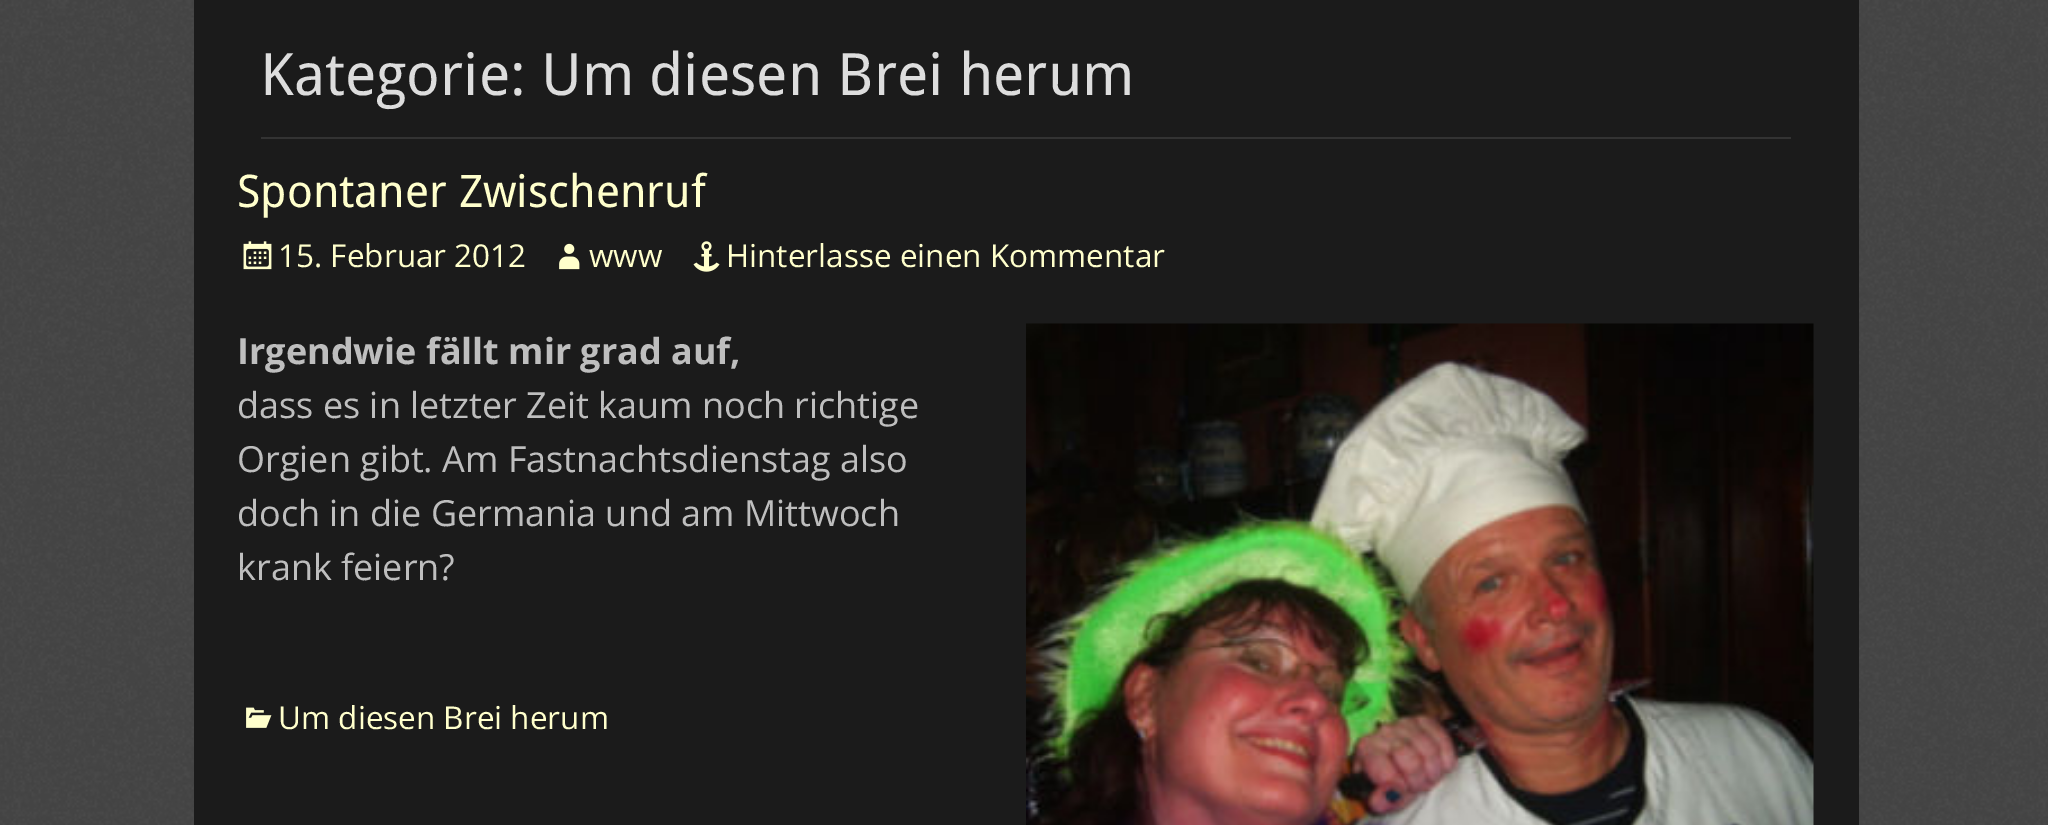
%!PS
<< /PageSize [2048 825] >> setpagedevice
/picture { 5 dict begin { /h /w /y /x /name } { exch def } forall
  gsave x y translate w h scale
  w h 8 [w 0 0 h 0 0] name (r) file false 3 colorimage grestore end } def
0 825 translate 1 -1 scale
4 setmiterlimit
1 setgray
0 0 2048 825 rectfill
(img1.rgb) 0 0 2048 825 picture
0.106 setgray
194 0 1665 825 rectfill
0.2 setgray
261 137 1530 2 rectfill
/DroidSans-Regular [58.5 0 0 -58.5 0 0] selectfont
0.867 setgray
260 95 moveto (Kategorie: Um diesen Brei herum) show
/DroidSans-Regular [45 0 0 -45 0 0] selectfont
1 1 0.8 setrgbcolor
237 207 moveto (Spontaner Zwischenruf) show
(img2.rgb) 243 241 29 29 picture
/OpenSans-Regular [31.5 0 0 -31.5 0 0] selectfont
278 267 moveto (15. Februar 2012) show
(img3.rgb) 559 243 21 27 picture
589 267 moveto (www) show
(img4.rgb) 693 241 27 31 picture
726 267 moveto (Hinterlasse einen Kommentar) show
/OpenSans-Bold [36 0 0 -36 0 0] selectfont
0.745 setgray
237 364 moveto (Irgendwie fällt mir grad auf,) show
(img5.rgb) 1026 323 788 502 picture
/OpenSans-Regular [36 0 0 -36 0 0] selectfont
237 418 moveto (dass es in letzter Zeit kaum noch richtige) show
237 472 moveto (Orgien gibt. Am Fastnachtsdienstag also) show
237 526 moveto (doch in die Germania und am Mittwoch) show
237 580 moveto (krank feiern?) show
(img6.rgb) 246 707 26 21 picture
/OpenSans-Regular [31.5 0 0 -31.5 0 0] selectfont
1 1 0.8 setrgbcolor
278 729 moveto (Um diesen Brei herum) show
showpage
